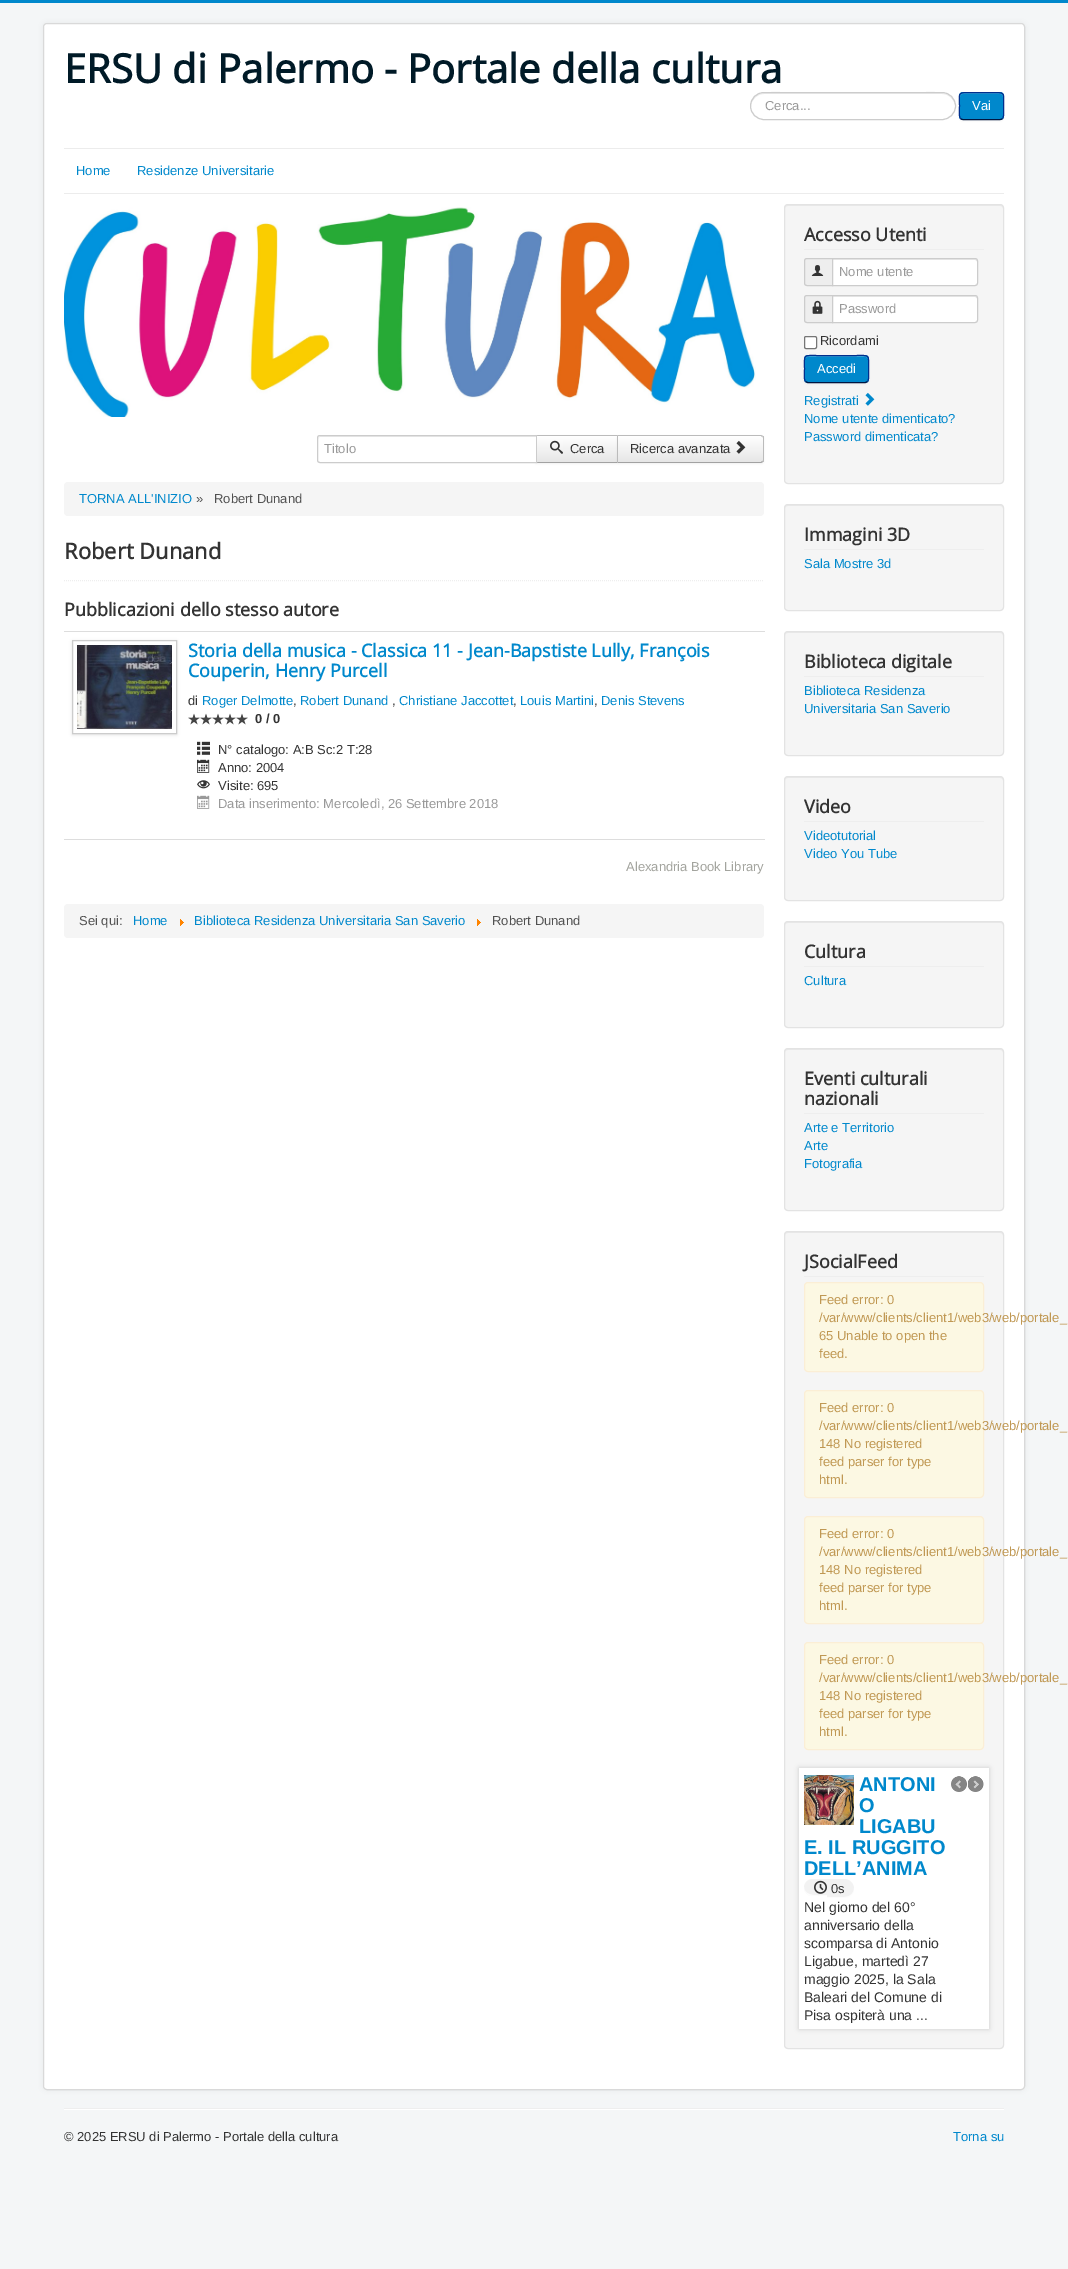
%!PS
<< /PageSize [1068 2269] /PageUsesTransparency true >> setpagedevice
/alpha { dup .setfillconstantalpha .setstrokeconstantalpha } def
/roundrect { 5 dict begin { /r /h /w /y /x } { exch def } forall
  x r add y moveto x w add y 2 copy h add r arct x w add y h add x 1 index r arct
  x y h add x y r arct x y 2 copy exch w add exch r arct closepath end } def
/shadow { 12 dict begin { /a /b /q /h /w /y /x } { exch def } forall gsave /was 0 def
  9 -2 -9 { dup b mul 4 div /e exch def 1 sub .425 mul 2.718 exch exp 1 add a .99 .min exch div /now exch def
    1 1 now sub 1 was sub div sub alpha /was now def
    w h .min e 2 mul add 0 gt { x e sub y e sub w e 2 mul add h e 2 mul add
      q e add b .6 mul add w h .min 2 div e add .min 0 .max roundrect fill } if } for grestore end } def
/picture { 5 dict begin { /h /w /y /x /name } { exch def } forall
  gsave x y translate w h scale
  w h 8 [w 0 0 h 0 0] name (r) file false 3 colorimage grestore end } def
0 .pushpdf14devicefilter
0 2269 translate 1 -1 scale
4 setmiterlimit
0.957 0.965 0.969 setrgbcolor
0 0 1068 2269 rectfill
0 0.533 0.8 setrgbcolor
0 0 1068 3 rectfill
0 setgray
43 23 982 2067 4 3 0.05 shadow
1 setgray
43 23 982 2067 4 roundrect fill
0.15 alpha
0 setgray
43.5 23.5 981 2066 3.5 roundrect stroke
/OpenSans-Bold [40 0 0 -40 0 0] selectfont
1 alpha
0 0.102 0.153 setrgbcolor
64 83 moveto (ERSU di Palermo - Portale della cultura) show
0.925 setgray
newpath 764 94 moveto 942 94 lineto 949 94 955 100 955 107 curveto 956 86 920 93 912 93 curveto 794 93 lineto 786 93 750 86 751 107 curveto 751 100 757 94 764 94 curveto closepath fill
0.8 setgray
750.5 92.5 205 27 13.5 roundrect stroke
/LiberationSans-Regular [13 0 0 -13 0 0] selectfont
0.6 setgray
765 110 moveto (Cerca...) show
0 setgray
959 93 45 28 4 1 0.05 shadow
0 0.533 0.8 setrgbcolor
959 92 45 28 4 roundrect fill
0.2 0.627 0.839 setrgbcolor
newpath 963 94 moveto 1000 94 lineto 1002 94 1003 95 1003 97 curveto 1003 92 998 93 994 93 curveto 969 93 lineto 965 93 960 92 960 97 curveto 960 95 961 94 963 94 curveto closepath fill
0 0.086 0.255 setrgbcolor
newpath 1002.5 118.5 moveto 1002 119 1001 119.5 1000 119.5 curveto 963 119.5 lineto 962 119.5 961 119 960.5 118.5 curveto stroke
0 0.184 0.553 setrgbcolor
newpath 960.5 118.5 moveto 958.5 116 959.5 108.5 959.5 106 curveto 959.5 93.5 957 92.5 969 92.5 curveto 994 92.5 lineto 1006 92.5 1003.5 93.5 1003.5 106 curveto 1003.5 108.5 1004.5 116 1002.5 118.5 curveto stroke
1 setgray
972 110 moveto (Vai) show
0.925 setgray
64 148 940 1 rectfill
64 193 940 1 rectfill
0 0.533 0.8 setrgbcolor
76 175 moveto (Home) show
137 175 moveto (Residenze Universitarie) show
(img1.rgb) 64 207 692 210 picture
0 setgray
536 436 82 28 0 1 0.05 shadow
0.733 setgray
536 435 82 1 rectfill
0.635 setgray
536 462 82 1 rectfill
1 setgray
newpath 320 435 moveto 537 435 lineto 537 463 lineto 320 463 lineto 318.5 463 317 461.5 317 460 curveto 317 438 lineto 317 436.5 318.5 435 320 435 curveto closepath fill
0.925 setgray
newpath 320 437 moveto 536 437 lineto 536 436 lineto 320 436 lineto 319 437 lineto 318 439 lineto 318 438 319 437 320 437 curveto closepath fill
0.8 setgray
newpath 320 435.5 moveto 536.5 435.5 lineto 536.5 462.5 lineto 320 462.5 lineto 318.5 462.5 317.5 461.5 317.5 460 curveto 317.5 438 lineto 317.5 436.5 318.5 435.5 320 435.5 curveto closepath stroke
0.6 setgray
324 453 moveto (Titolo) show
gsave newpath 537 436 moveto 617 436 lineto 617 462 lineto 537 462 lineto closepath clip newpath
<< /ShadingType 2 /ColorSpace /DeviceRGB /Coords [577 436 577 462] /Extend [true true] /Function << /FunctionType 2 /Domain [0 1] /C0 [1 1 1] /C1 [0.902 0.902 0.902] /N 1 >> >> shfill grestore
(img2.rgb) 550 440 13 14 picture
0.2 setgray
570 453 moveto (Cerca) show
0 setgray
617 436 147 28 3 1 0.05 shadow
0.961 setgray
newpath 617 435 moveto 761 435 lineto 762.5 435 764 436.5 764 438 curveto 764 460 lineto 764 461.5 762.5 463 761 463 curveto 617 463 lineto closepath fill
gsave
newpath 617 435 moveto 761 435 lineto 762.5 435 764 436.5 764 438 curveto 764 460 lineto 764 461.5 762.5 463 761 463 curveto 617 463 lineto closepath clip newpath
gsave newpath 618 436 moveto 764 436 lineto 764 462 lineto 618 462 lineto closepath clip newpath
<< /ShadingType 2 /ColorSpace /DeviceRGB /Coords [691 436 691 462] /Extend [true true] /Function << /FunctionType 2 /Domain [0 1] /C0 [1 1 1] /C1 [0.902 0.902 0.902] /N 1 >> >> shfill grestore
grestore
0.733 setgray
newpath 617 435 moveto 618 436 lineto 761 436 lineto 762 437 lineto 763 436 lineto 761 435 lineto closepath fill
newpath 764 460 moveto 764 438 lineto 764 437 764 436 763 436 curveto 762.5 436.5 lineto 763 437 763 437.5 763 438 curveto 763 460 lineto 763 460.5 763 461 762.5 461.5 curveto 763 462 lineto 764 462 764 461 764 460 curveto closepath fill
0.635 setgray
newpath 761 463 moveto 763 462 lineto 762 461 lineto 761 462 lineto 618 462 lineto 617 463 lineto closepath fill
0.733 setgray
newpath 617 435 moveto 617 463 lineto 618 462 lineto 618 436 lineto closepath fill
0.2 setgray
630 453 moveto (Ricerca avanzata) show
(img3.rgb) 736 440 10 14 picture
0.961 setgray
64 482 700 34 4 roundrect fill
0 0.533 0.8 setrgbcolor
79 503 moveto (TORNA ALL'INIZIO) show
0.318 setgray
196 503 moveto (») show
214 503 moveto (Robert Dunand) show
/OpenSans-Bold [22 0 0 -22 0 0] selectfont
0.2 setgray
64 559 moveto (Robert Dunand) show
0.933 setgray
[1 1] 0 setdash
newpath 64 580.5 moveto 764 580.5 lineto stroke
/OpenSans-Bold [18 0 0 -18 0 0] selectfont
0.2 setgray
64 616 moveto (Pubblicazioni dello stesso autore) show
gsave
newpath 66 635 moveto 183 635 lineto 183 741 lineto 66 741 lineto closepath 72 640 moveto 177 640 lineto 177 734 lineto 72 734 lineto closepath eoclip newpath
0 setgray
72 641 105 94 0 1.5 0.1 shadow
grestore
0.8 setgray
[] 0 setdash
72.5 640.5 104 93 rectstroke
(img4.rgb) 77 645 95 84 picture
0.867 setgray
64 631 701 1 rectfill
64 839 701 1 rectfill
0 0.533 0.8 setrgbcolor
188 657 moveto (Storia della musica - Classica 11 - Jean-Bapstiste Lully, François) show
188 677 moveto (Couperin, Henry Purcell) show
/LiberationSans-Regular [13 0 0 -13 0 0] selectfont
0.2 setgray
188 705 moveto (di) show
0 0.533 0.8 setrgbcolor
202 705 moveto (Roger Delmotte) show
0.2 setgray
293 705 moveto (,) show
0 0.533 0.8 setrgbcolor
300 705 moveto (Robert Dunand) show
0.2 setgray
392 705 moveto (,) show
0 0.533 0.8 setrgbcolor
399 705 moveto (Christiane Jaccottet) show
0.2 setgray
513 705 moveto (,) show
0 0.533 0.8 setrgbcolor
520 705 moveto (Louis Martini) show
0.2 setgray
594 705 moveto (,) show
0 0.533 0.8 setrgbcolor
601 705 moveto (Denis Stevens) show
(img5.rgb) 188 713 12 12 picture
(img5.rgb) 200 713 12 12 picture
(img5.rgb) 212 713 12 12 picture
(img5.rgb) 224 713 12 12 picture
(img5.rgb) 236 713 12 12 picture
/LiberationSans-Bold [13 0 0 -13 0 0] selectfont
0.2 setgray
255 723 moveto (0 / 0) show
(img6.rgb) 197 741 13 14 picture
/LiberationSans-Regular [13 0 0 -13 0 0] selectfont
218 754 moveto (N° catalogo: A:B Sc:2 T:28) show
(img7.rgb) 197 759 13 14 picture
218 772 moveto (Anno: 2004) show
(img8.rgb) 197 780 13 9 picture
218 790 moveto (Visite: 695) show
(img9.rgb) 197 795 13 14 picture
0.6 setgray
218 808 moveto (Data inserimento: Mercoledì, 26 Settembre 2018) show
0.639 0.643 0.62 setrgbcolor
626 871 moveto (Alexandria Book Library) show
0.961 setgray
64 904 700 34 4 roundrect fill
0.318 setgray
79 925 moveto (Sei qui:) show
0 0.533 0.8 setrgbcolor
133 925 moveto (Home) show
(img10.rgb) 180 919 4 7 picture
194 925 moveto (Biblioteca Residenza Universitaria San Saverio) show
(img10.rgb) 477 919 4 7 picture
0.318 setgray
492 925 moveto (Robert Dunand) show
0.961 setgray
784 204 220 280 4 roundrect fill
0.914 setgray
newpath 788 206 moveto 1000 206 lineto 1002 206 1003 207 1003 209 curveto 1003 208 lineto 1003 206 1002 205 1000 205 curveto 788 205 lineto 786 205 785 206 785 208 curveto 785 209 lineto 785 207 786 206 788 206 curveto closepath fill
0.89 setgray
784.5 204.5 219 279 3.5 roundrect stroke
0.933 setgray
804 249 180 1 rectfill
/OpenSans-Bold [18 0 0 -18 0 0] selectfont
0.2 setgray
804 241 moveto (Accesso Utenti) show
0.933 setgray
newpath 807 258.5 moveto 832.5 258.5 lineto 832.5 285.5 lineto 807 285.5 lineto 805.5 285.5 804.5 284.5 804.5 283 curveto 804.5 261 lineto 804.5 259.5 805.5 258.5 807 258.5 curveto closepath gsave fill grestore
0.8 setgray
stroke
(img11.rgb) 811 265 13 11 picture
1 setgray
newpath 832 258 moveto 975 258 lineto 976.5 258 978 259.5 978 261 curveto 978 283 lineto 978 284.5 976.5 286 975 286 curveto 832 286 lineto closepath fill
0.925 setgray
newpath 833 260 moveto 975 260 lineto 976 260 977 261 977 262 curveto 977 261 977 259 975 259 curveto 833 259 lineto closepath fill
0.8 setgray
newpath 832.5 258.5 moveto 975 258.5 lineto 976.5 258.5 977.5 259.5 977.5 261 curveto 977.5 283 lineto 977.5 284.5 976.5 285.5 975 285.5 curveto 832.5 285.5 lineto closepath stroke
/LiberationSans-Regular [13 0 0 -13 0 0] selectfont
0.6 setgray
839 276 moveto (Nome utente) show
0.933 setgray
newpath 807 295.5 moveto 832.5 295.5 lineto 832.5 322.5 lineto 807 322.5 lineto 805.5 322.5 804.5 321.5 804.5 320 curveto 804.5 298 lineto 804.5 296.5 805.5 295.5 807 295.5 curveto closepath gsave fill grestore
0.8 setgray
stroke
(img12.rgb) 812 300 11 14 picture
1 setgray
newpath 832 295 moveto 975 295 lineto 976.5 295 978 296.5 978 298 curveto 978 320 lineto 978 321.5 976.5 323 975 323 curveto 832 323 lineto closepath fill
0.925 setgray
newpath 833 297 moveto 975 297 lineto 976 297 977 298 977 299 curveto 977 298 977 296 975 296 curveto 833 296 lineto closepath fill
0.8 setgray
newpath 832.5 295.5 moveto 975 295.5 lineto 976.5 295.5 977.5 296.5 977.5 298 curveto 977.5 320 lineto 977.5 321.5 976.5 322.5 975 322.5 curveto 832.5 322.5 lineto closepath stroke
0.6 setgray
839 313 moveto (Password) show
1 setgray
804.5 336.5 12 12 1.5 roundrect gsave fill grestore
0.463 setgray
stroke
0.2 setgray
820 345 moveto (Ricordami) show
0 setgray
804 356 65 28 4 1 0.05 shadow
0 0.533 0.8 setrgbcolor
804 355 65 28 4 roundrect fill
0.2 0.627 0.839 setrgbcolor
newpath 808 357 moveto 866 357 lineto 868 359 lineto 868 357 867 356 865 356 curveto 808 356 lineto 806 356 805 357 805 359 curveto 805 358 806 357 808 357 curveto closepath 805 380 moveto 805 377 lineto closepath eofill
0 0.086 0.255 setrgbcolor
newpath 867.5 381.5 moveto 865.5 382.5 lineto 807.5 382.5 lineto 805.5 381.5 lineto stroke
0 0.184 0.553 setrgbcolor
newpath 805.5 381.5 moveto 803.5 379 804.5 371.5 804.5 369 curveto 804.5 354 802.5 355.5 817.5 355.5 curveto 855.5 355.5 lineto 870.5 355.5 868.5 354 868.5 369 curveto 868.5 371.5 869.5 379 867.5 381.5 curveto stroke
1 setgray
817 373 moveto (Accedi) show
0 0.533 0.8 setrgbcolor
804 405 moveto (Registrati) show
(img13.rgb) 865 392 10 14 picture
804 423 moveto (Nome utente dimenticato?) show
804 441 moveto (Password dimenticata?) show
0.961 setgray
784 504 220 107 4 roundrect fill
0.914 setgray
newpath 788 506 moveto 1000 506 lineto 1002 506 1003 507 1003 509 curveto 1003 508 lineto 1003 506 1002 505 1000 505 curveto 788 505 lineto 786 505 785 506 785 508 curveto 785 509 lineto 785 507 786 506 788 506 curveto closepath fill
0.89 setgray
784.5 504.5 219 106 3.5 roundrect stroke
0.933 setgray
804 549 180 1 rectfill
/OpenSans-Bold [18 0 0 -18 0 0] selectfont
0.2 setgray
804 541 moveto (Immagini 3D) show
/LiberationSans-Regular [13 0 0 -13 0 0] selectfont
0 0.533 0.8 setrgbcolor
804 568 moveto (Sala Mostre 3d) show
0.961 setgray
784 631 220 125 4 roundrect fill
0.914 setgray
newpath 788 633 moveto 1000 633 lineto 1002 633 1003 634 1003 636 curveto 1003 635 lineto 1003 633 1002 632 1000 632 curveto 788 632 lineto 786 632 785 633 785 635 curveto 785 636 lineto 785 634 786 633 788 633 curveto closepath fill
0.89 setgray
784.5 631.5 219 124 3.5 roundrect stroke
0.933 setgray
804 676 180 1 rectfill
/OpenSans-Bold [18 0 0 -18 0 0] selectfont
0.2 setgray
804 668 moveto (Biblioteca digitale) show
/LiberationSans-Regular [13 0 0 -13 0 0] selectfont
0 0.533 0.8 setrgbcolor
804 695 moveto (Biblioteca Residenza) show
804 713 moveto (Universitaria San Saverio) show
0.961 setgray
784 776 220 125 4 roundrect fill
0.914 setgray
newpath 788 778 moveto 1000 778 lineto 1002 778 1003 779 1003 781 curveto 1003 780 lineto 1003 778 1002 777 1000 777 curveto 788 777 lineto 786 777 785 778 785 780 curveto 785 781 lineto 785 779 786 778 788 778 curveto closepath fill
0.89 setgray
784.5 776.5 219 124 3.5 roundrect stroke
0.933 setgray
804 821 180 1 rectfill
/OpenSans-Bold [18 0 0 -18 0 0] selectfont
0.2 setgray
804 813 moveto (Video) show
/LiberationSans-Regular [13 0 0 -13 0 0] selectfont
0 0.533 0.8 setrgbcolor
804 840 moveto (Videotutorial) show
804 858 moveto (Video You Tube) show
0.961 setgray
784 921 220 107 4 roundrect fill
0.914 setgray
newpath 788 923 moveto 1000 923 lineto 1002 923 1003 924 1003 926 curveto 1003 925 lineto 1003 923 1002 922 1000 922 curveto 788 922 lineto 786 922 785 923 785 925 curveto 785 926 lineto 785 924 786 923 788 923 curveto closepath fill
0.89 setgray
784.5 921.5 219 106 3.5 roundrect stroke
0.933 setgray
804 966 180 1 rectfill
/OpenSans-Bold [18 0 0 -18 0 0] selectfont
0.2 setgray
804 958 moveto (Cultura) show
/LiberationSans-Regular [13 0 0 -13 0 0] selectfont
0 0.533 0.8 setrgbcolor
804 985 moveto (Cultura) show
0.961 setgray
784 1048 220 163 4 roundrect fill
0.914 setgray
newpath 788 1050 moveto 1000 1050 lineto 1002 1050 1003 1051 1003 1053 curveto 1003 1052 lineto 1003 1050 1002 1049 1000 1049 curveto 788 1049 lineto 786 1049 785 1050 785 1052 curveto 785 1053 lineto 785 1051 786 1050 788 1050 curveto closepath fill
0.89 setgray
784.5 1048.5 219 162 3.5 roundrect stroke
0.933 setgray
804 1113 180 1 rectfill
/OpenSans-Bold [18 0 0 -18 0 0] selectfont
0.2 setgray
804 1085 moveto (Eventi culturali) show
804 1105 moveto (nazionali) show
/LiberationSans-Regular [13 0 0 -13 0 0] selectfont
0 0.533 0.8 setrgbcolor
804 1132 moveto (Arte e Territorio) show
804 1150 moveto (Arte) show
804 1168 moveto (Fotografia) show
0.961 setgray
784 1231 220 818 4 roundrect fill
0.914 setgray
newpath 788 1233 moveto 1000 1233 lineto 1002 1233 1003 1234 1003 1236 curveto 1003 1235 lineto 1003 1233 1002 1232 1000 1232 curveto 788 1232 lineto 786 1232 785 1233 785 1235 curveto 785 1236 lineto 785 1234 786 1233 788 1233 curveto closepath fill
0.89 setgray
784.5 1231.5 219 817 3.5 roundrect stroke
0.933 setgray
804 1276 180 1 rectfill
/OpenSans-Bold [18 0 0 -18 0 0] selectfont
0.2 setgray
804 1268 moveto (JSocialFeed) show
0.988 0.973 0.89 setrgbcolor
804.5 1282.5 179 89 3.5 roundrect gsave fill grestore
0.984 0.933 0.835 setrgbcolor
stroke
/LiberationSans-Regular [13 0 0 -13 0 0] selectfont
0.753 0.596 0.325 setrgbcolor
819 1304 moveto (Feed error: 0) show
819 1322 moveto (/var/www/clients/client1/web3/web/portale_) show
819 1340 moveto (65 Unable to open the) show
819 1358 moveto (feed.) show
0.988 0.973 0.89 setrgbcolor
804.5 1390.5 179 107 3.5 roundrect gsave fill grestore
0.984 0.933 0.835 setrgbcolor
stroke
0.753 0.596 0.325 setrgbcolor
819 1412 moveto (Feed error: 0) show
819 1430 moveto (/var/www/clients/client1/web3/web/portale_) show
819 1448 moveto (148 No registered) show
819 1466 moveto (feed parser for type) show
819 1484 moveto (html.) show
0.988 0.973 0.89 setrgbcolor
804.5 1516.5 179 107 3.5 roundrect gsave fill grestore
0.984 0.933 0.835 setrgbcolor
stroke
0.753 0.596 0.325 setrgbcolor
819 1538 moveto (Feed error: 0) show
819 1556 moveto (/var/www/clients/client1/web3/web/portale_) show
819 1574 moveto (148 No registered) show
819 1592 moveto (feed parser for type) show
819 1610 moveto (html.) show
0.988 0.973 0.89 setrgbcolor
804.5 1642.5 179 107 3.5 roundrect gsave fill grestore
0.984 0.933 0.835 setrgbcolor
stroke
0.753 0.596 0.325 setrgbcolor
819 1664 moveto (Feed error: 0) show
819 1682 moveto (/var/www/clients/client1/web3/web/portale_) show
819 1700 moveto (148 No registered) show
819 1718 moveto (feed parser for type) show
819 1736 moveto (html.) show
0.8 setgray
799 1768 190 261 0 2.5 1 shadow
1 setgray
799 1768 190 261 rectfill
(img14.rgb) 804 1775 50 50 picture
/LiberationSans-Bold [20 0 0 -20 0 0] selectfont
0 0.533 0.8 setrgbcolor
859 1791 moveto (ANTONI) show
859 1812 moveto (O) show
859 1833 moveto (LIGABU) show
804 1854 moveto (E. IL RUGGITO) show
804 1875 moveto (DELL’ANIMA) show
0.949 setgray
newpath 812.5 1879 moveto 827 1879 lineto 827 1896 lineto 812.5 1896 lineto 808 1896 804 1892 804 1887.5 curveto 804 1883 808 1879 812.5 1879 curveto closepath fill
0.8 alpha
1 setgray
newpath 804 1887 moveto 804 1891 806.5 1895 811 1896 curveto 827 1896 lineto 827 1895 lineto 820 1895 804.5 1897.5 804 1887 curveto closepath fill
1 alpha
(img15.rgb) 814 1880 13 14 picture
0.949 setgray
newpath 827 1879 moveto 844.5 1879 lineto 849.5 1879 854 1883.5 854 1888.5 curveto 854 1893.5 849.5 1898 844.5 1898 curveto 827 1898 lineto closepath fill
0.8 alpha
1 setgray
newpath 827 1897 moveto 827 1898 lineto 846.5 1898 lineto 851 1897 854 1893 854 1888 curveto 854 1893 850 1897 844 1897 curveto closepath fill
/LiberationSans-Regular [13 0 0 -13 0 0] selectfont
1 alpha
0.2 setgray
831 1893 moveto (0s) show
/LiberationSans-Regular [14 0 0 -14 0 0] selectfont
804 1912 moveto (Nel giorno del 60°) show
804 1930 moveto (anniversario della) show
804 1948 moveto (scomparsa di Antonio) show
804 1966 moveto (Ligabue, martedì 27) show
804 1984 moveto (maggio 2025, la Sala) show
804 2002 moveto (Baleari del Comune di) show
804 2020 moveto (Pisa ospiterà una ...) show
(img16.rgb) 951 1776 16 16 picture
(img17.rgb) 968 1776 16 16 picture
0.933 setgray
64 2108 940 1 rectfill
1 setgray
64 2109 940 1 rectfill
/LiberationSans-Regular [13 0 0 -13 0 0] selectfont
0.2 setgray
64 2141 moveto (© 2025 ERSU di Palermo - Portale della cultura) show
0 0.533 0.8 setrgbcolor
953 2141 moveto (Torna su) show
.poppdf14devicefilter showpage
